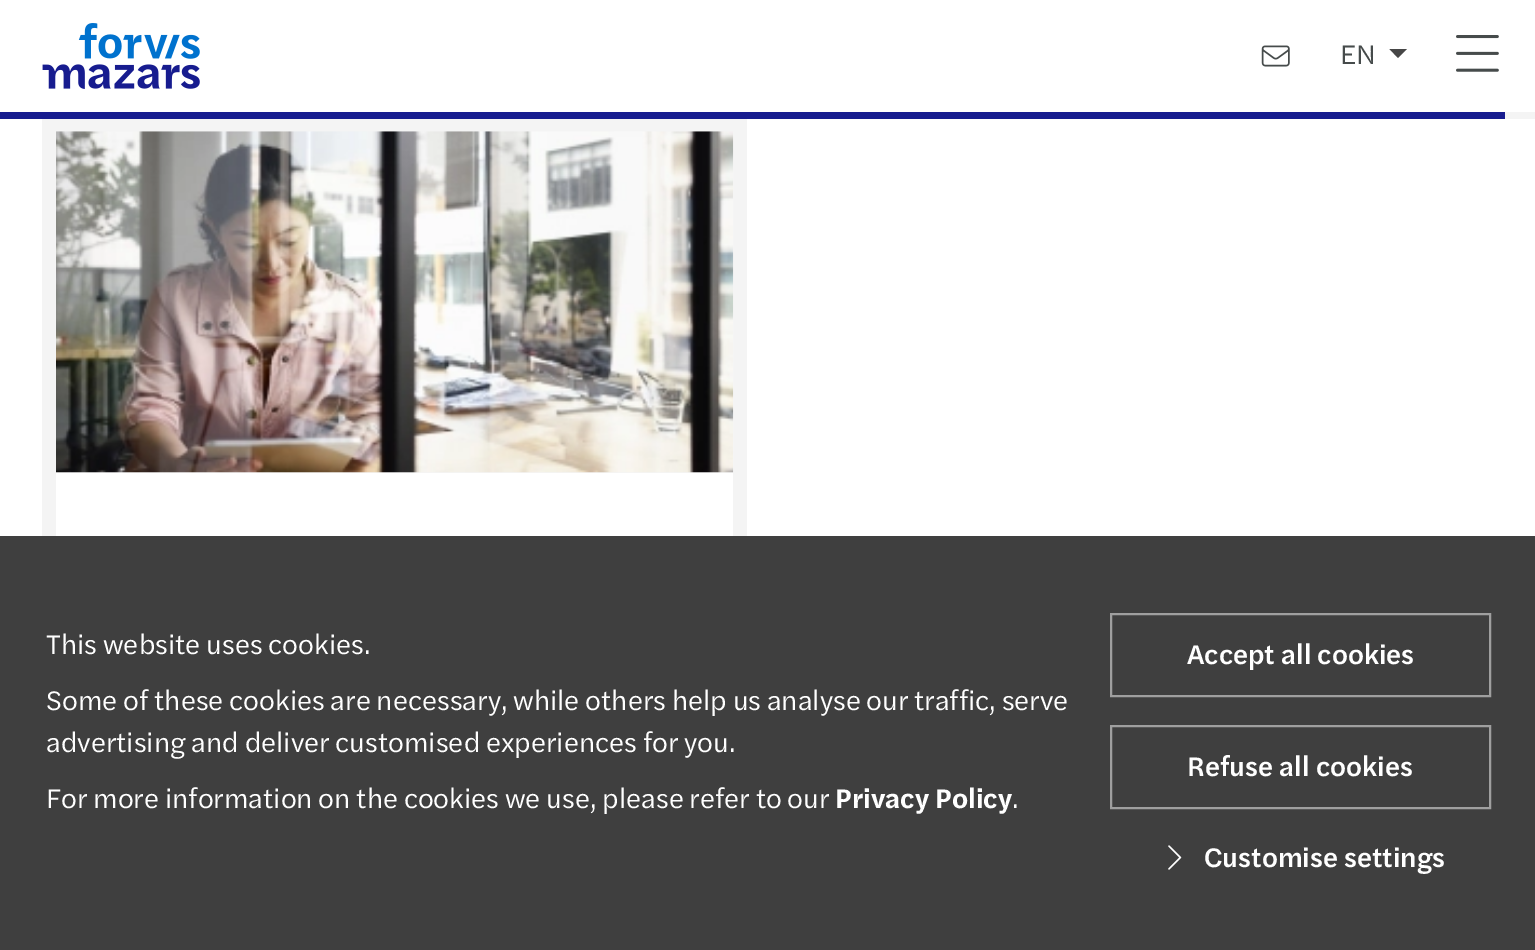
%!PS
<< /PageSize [1535 950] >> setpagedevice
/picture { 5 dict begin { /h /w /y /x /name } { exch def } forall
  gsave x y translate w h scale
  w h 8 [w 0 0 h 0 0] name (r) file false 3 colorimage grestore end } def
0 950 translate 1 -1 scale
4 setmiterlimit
1 setgray
0 0 1535 950 rectfill
(img1.rgb) 42 23 158 66 picture
(img2.rgb) 1261 45 29 22 picture
/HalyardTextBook-Regular [28 0 0 -28 0 0] selectfont
0.275 0.294 0.294 setrgbcolor
1340 64 moveto (EN) show
0.275 setgray
newpath 1398 58 moveto 1407 49 lineto 1389.5 49 lineto closepath fill
(img3.rgb) 1456 35 43 37 picture
0.957 setgray
1505 112 30 7 rectfill
0.09 0.11 0.561 setrgbcolor
0 112 1505 7 rectfill
0.957 setgray
42 119 705 417 rectfill
(img4.rgb) 56 131 678 342 picture
1 setgray
56 473 677 63 rectfill
0.247 setgray
0 536 1535 414 rectfill
1 setgray
46 654 moveto (This website uses cookies.) show
46 710 moveto (Some of these cookies are necessary, while others help us analyse our traffic, serve) show
46 752 moveto (advertising and deliver customised experiences for you.) show
46 808 moveto (For more information on the cookies we use, please refer to our) show
/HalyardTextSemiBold-SemiBold [28 0 0 -28 0 0] selectfont
835 808 moveto (Privacy Policy) show
/HalyardTextBook-Regular [28 0 0 -28 0 0] selectfont
1012 808 moveto (.) show
0.624 setgray
2 setlinewidth
1111 614 379 82 rectstroke
/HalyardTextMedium-Medium [28 0 0 -28 0 0] selectfont
1 setgray
1187 664 moveto (Accept all cookies) show
0.624 setgray
1111 726 379 82 rectstroke
1 setgray
1187 776 moveto (Refuse all cookies) show
(img5.rgb) 1168 845 14 25 picture
1204 867 moveto (Customise settings) show
showpage
